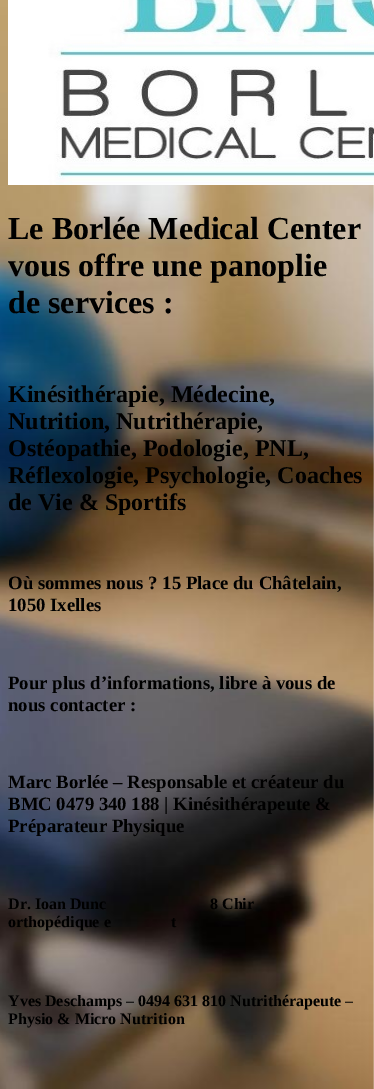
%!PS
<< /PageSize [374 1089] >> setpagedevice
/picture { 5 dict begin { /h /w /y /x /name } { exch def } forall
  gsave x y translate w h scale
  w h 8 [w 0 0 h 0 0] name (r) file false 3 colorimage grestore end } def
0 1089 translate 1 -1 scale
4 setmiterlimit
1 setgray
0 0 374 1089 rectfill
(img1.rgb) 0 0 374 1089 picture
(img2.rgb) 8 0 366 185 picture
/LiberationSerif-Bold [32 0 0 -32 0 0] selectfont
0 setgray
8 239 moveto (Le Borlée Medical Center) show
8 276 moveto (vous offre une panoplie) show
8 313 moveto (de services :) show
/LiberationSerif-Bold [24 0 0 -24 0 0] selectfont
8 402 moveto (Kinésithérapie, Médecine,) show
8 429 moveto (Nutrition, Nutrithérapie,) show
8 456 moveto (Ostéopathie, Podologie, PNL,) show
8 483 moveto (Réflexologie, Psychologie, Coaches) show
8 510 moveto (de Vie & Sportifs) show
/LiberationSerif-Bold [18.75 0 0 -18.75 0 0] selectfont
8 589 moveto (Où sommes nous ? 15 Place du Châtelain,) show
8 611 moveto (1050 Ixelles) show
8 689 moveto (Pour plus d’informations, libre à vous de) show
8 711 moveto (nous contacter :) show
8 788 moveto (Marc Borlée – Responsable et créateur du) show
8 810 moveto (BMC 0479 340 188 | Kinésithérapeute &) show
8 832 moveto (Préparateur Physique) show
/LiberationSerif-Bold [16 0 0 -16 0 0] selectfont
8 909 moveto (Dr. Ioan Dunc) show
210 909 moveto (8 Chir) show
8 927 moveto (orthopédique e) show
171 927 moveto (t) show
8 1006 moveto (Yves Deschamps – 0494 631 810 Nutrithérapeute –) show
8 1024 moveto (Physio & Micro Nutrition) show
showpage
